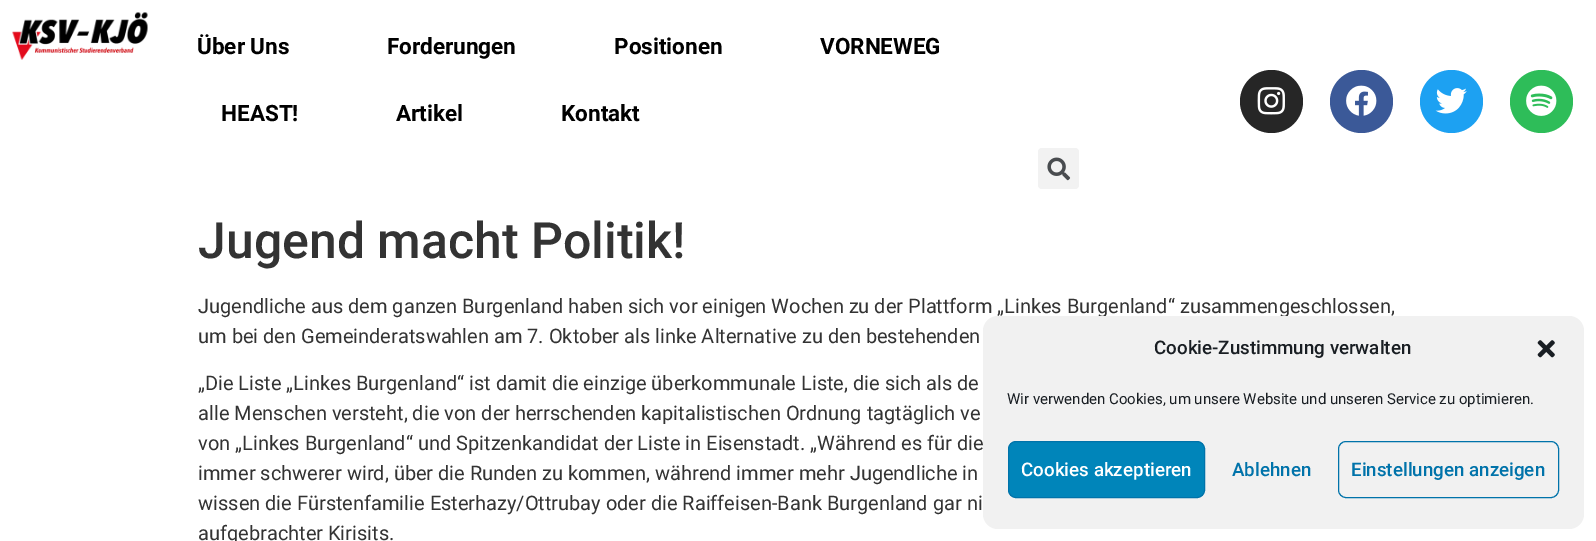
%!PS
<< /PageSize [1596 541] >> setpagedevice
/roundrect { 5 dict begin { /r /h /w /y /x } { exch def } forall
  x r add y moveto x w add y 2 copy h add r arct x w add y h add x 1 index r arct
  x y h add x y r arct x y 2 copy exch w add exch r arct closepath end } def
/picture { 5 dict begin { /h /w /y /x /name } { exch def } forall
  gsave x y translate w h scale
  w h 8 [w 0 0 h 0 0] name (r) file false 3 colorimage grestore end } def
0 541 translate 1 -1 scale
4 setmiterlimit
1 setgray
0 0 1596 541 rectfill
(img1.rgb) 12 12 136 48 picture
/Roboto-Bold [22.5 0 0 -22.5 0 0] selectfont
0 setgray
197 54 moveto (Über Uns) show
387 54 moveto (Forderungen) show
614 54 moveto (Positionen) show
820 54 moveto (VORNEWEG) show
221 121 moveto (HEAST!) show
396 121 moveto (Artikel) show
561 121 moveto (Kontakt) show
0.949 setgray
1038 148 41 41 4 roundrect fill
(img2.rgb) 1047 157 24 24 picture
0.149 setgray
newpath 1271.5 101.5 31.5 0 360 arc closepath fill
(img3.rgb) 1257 87 28 28 picture
0.231 0.349 0.596 setrgbcolor
newpath 1361.5 101.5 31.5 0 360 arc closepath fill
(img4.rgb) 1346 85 31 31 picture
0.114 0.631 0.949 setrgbcolor
newpath 1451.5 101.5 31.5 0 360 arc closepath fill
(img5.rgb) 1435 88 32 26 picture
0.18 0.741 0.349 setrgbcolor
newpath 1541.5 101.5 31.5 0 360 arc closepath fill
(img6.rgb) 1526 85 31 31 picture
/Roboto-Medium [50 0 0 -50 0 0] selectfont
0.2 setgray
198 258 moveto (Jugend macht Politik!) show
/Roboto-Regular [20 0 0 -20 0 0] selectfont
198 313 moveto (Jugendliche aus dem ganzen Burgenland haben sich vor einigen Wochen zu der Plattform „Linkes Burgenland“ zusammengeschlossen,) show
198 343 moveto (um bei den Gemeinderatswahlen am 7. Oktober als linke Alternative zu den bestehenden) show
198 390 moveto („Die Liste „Linkes Burgenland“ ist damit die einzige überkommunale Liste, die sich als de) show
198 420 moveto (alle Menschen versteht, die von der herrschenden kapitalistischen Ordnung tagtäglich ve) show
198 450 moveto (von „Linkes Burgenland“ und Spitzenkandidat der Liste in Eisenstadt. „Während es für die) show
198 480 moveto (immer schwerer wird, über die Runden zu kommen, während immer mehr Jugendliche in) show
198 510 moveto (wissen die Fürstenfamilie Esterhazy/Ottrubay oder die Raiffeisen-Bank Burgenland gar ni) show
198 540 moveto (aufgebrachter Kirisits.) show
0.945 setgray
983 316 601 213 15 roundrect fill
/Roboto-Medium [18.75 0 0 -18.75 0 0] selectfont
0.098 0.118 0.137 setrgbcolor
1154 354 moveto (Cookie-Zustimmung verwalten) show
(img7.rgb) 1537 340 18 18 picture
/Roboto-Regular [15 0 0 -15 0 0] selectfont
1007 404 moveto (Wir verwenden Cookies, um unsere Website und unseren Service zu optimieren.) show
0 0.522 0.729 setrgbcolor
1008.5 441.5 196 56 7.5 roundrect gsave fill grestore
0 0.451 0.667 setrgbcolor
stroke
/Roboto-Medium [18.75 0 0 -18.75 0 0] selectfont
1 setgray
1021 476 moveto (Cookies akzeptieren) show
0 0.451 0.667 setrgbcolor
1232 476 moveto (Ablehnen) show
1338.5 441.5 220 56 7.5 roundrect stroke
1351 476 moveto (Einstellungen anzeigen) show
showpage
